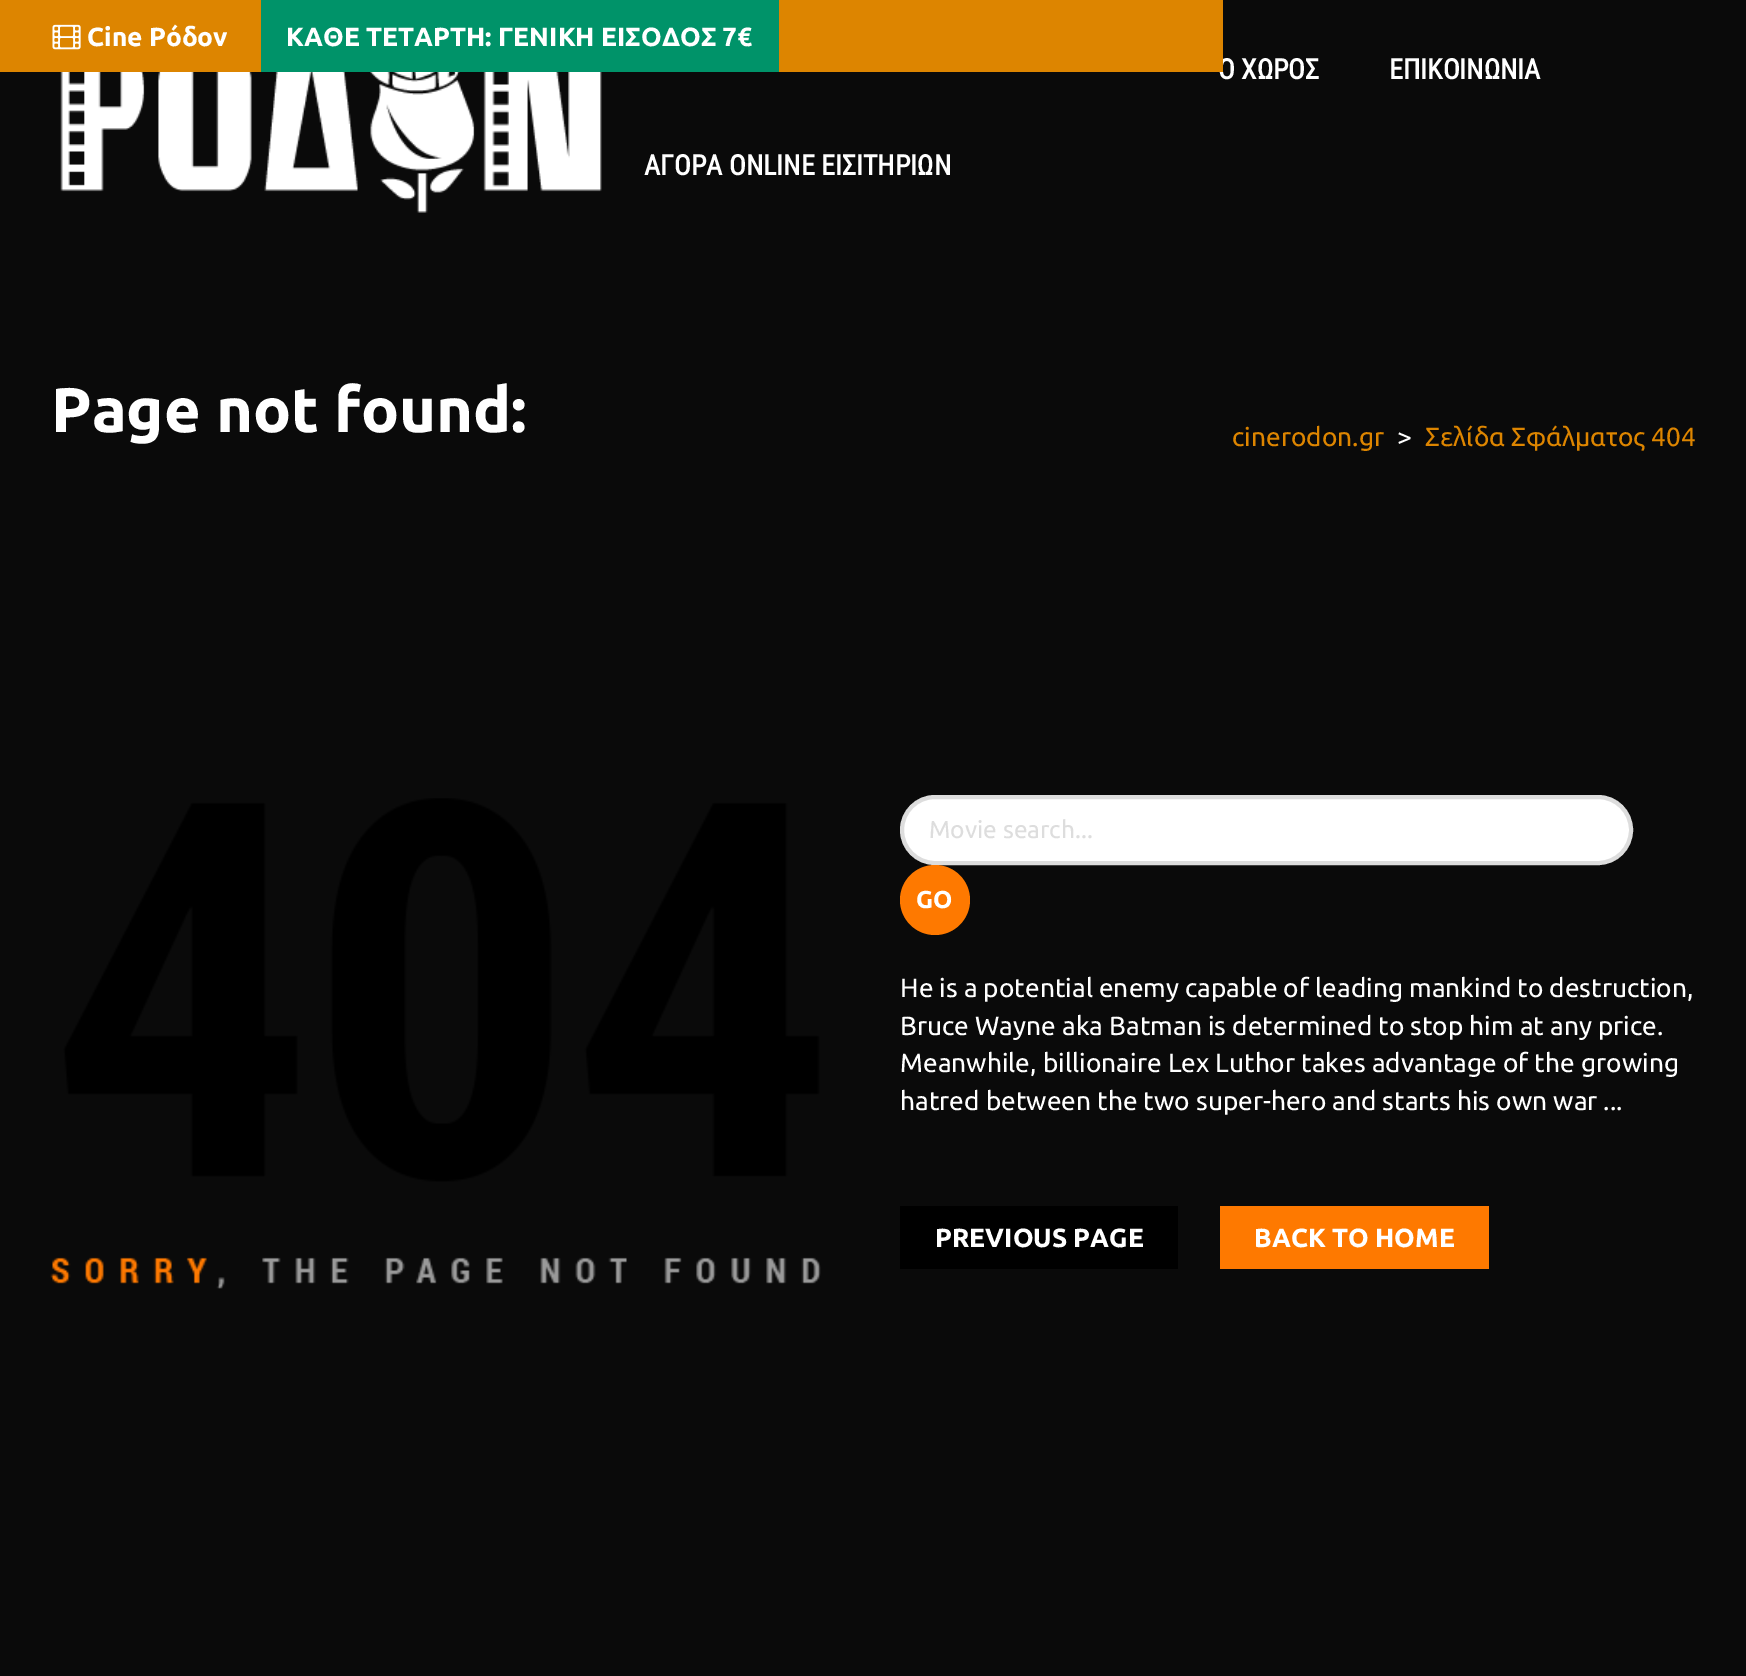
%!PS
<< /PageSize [1746 1676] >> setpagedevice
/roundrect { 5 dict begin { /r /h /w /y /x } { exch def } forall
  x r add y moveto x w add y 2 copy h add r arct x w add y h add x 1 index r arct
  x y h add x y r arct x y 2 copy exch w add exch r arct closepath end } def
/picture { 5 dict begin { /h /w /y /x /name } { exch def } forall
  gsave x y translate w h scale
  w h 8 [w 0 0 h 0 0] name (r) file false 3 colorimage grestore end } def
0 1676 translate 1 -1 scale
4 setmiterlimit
0.039 setgray
0 0 1746 1676 rectfill
/RobotoCondensed-Bold [28 0 0 -28 0 0] selectfont
1 setgray
1218 79 moveto (Ο ΧΩΡΟΣ) show
0.867 0.522 0 setrgbcolor
0 0 1223 72 rectfill
(img1.rgb) 52 24 29 26 picture
/Ubuntu-Bold [26.25 0 0 -26.25 0 0] selectfont
1 setgray
87 46 moveto (Cine Ρόδον) show
0 0.576 0.412 setrgbcolor
261 0 518 72 rectfill
1 setgray
286 46 moveto (ΚΑΘΕ ΤΕΤΑΡΤΗ: ΓΕΝΙΚΗ ΕΙΣΟΔΟΣ 7€) show
(img2.rgb) 60 72 542 141 picture
/RobotoCondensed-Bold [28 0 0 -28 0 0] selectfont
1389 79 moveto (ΕΠΙΚΟΙΝΩΝΙΑ) show
644 175 moveto (ΑΓΟΡΑ ONLINE ΕΙΣΙΤΗΡΙΩΝ) show
/Ubuntu-Bold [63 0 0 -63 0 0] selectfont
51 432 moveto (Page not found:) show
/Ubuntu-Regular [26.25 0 0 -26.25 0 0] selectfont
0.867 0.522 0 setrgbcolor
1232 446 moveto (cinerodon.gr) show
1 setgray
1397 446 moveto (>) show
0.867 0.522 0 setrgbcolor
1425 446 moveto (Σελίδα Σφάλματος 404) show
(img3.rgb) 50 798 771 491 picture
1 setgray
902 797 729 66 33 roundrect gsave fill grestore
0.867 setgray
4 setlinewidth
stroke
/Ubuntu-Regular [24.5 0 0 -24.5 0 0] selectfont
929 838 moveto (Movie search...) show
0.996 0.475 0 setrgbcolor
newpath 935 900 35 0 360 arc closepath fill
/Ubuntu-Bold [24.5 0 0 -24.5 0 0] selectfont
1 setgray
916 908 moveto (GO) show
/Ubuntu-Regular [26.25 0 0 -26.25 0 0] selectfont
900 997 moveto (He is a potential enemy capable of leading mankind to destruction,) show
900 1035 moveto (Bruce Wayne aka Batman is determined to stop him at any price.) show
900 1072 moveto (Meanwhile, billionaire Lex Luthor takes advantage of the growing) show
900 1110 moveto (hatred between the two super-hero and starts his own war ...) show
0 setgray
900 1206 278 63 rectfill
/Ubuntu-Bold [26.25 0 0 -26.25 0 0] selectfont
1 setgray
935 1247 moveto (PREVIOUS PAGE) show
0.996 0.475 0 setrgbcolor
1220 1206 269 63 rectfill
1 setgray
1254 1247 moveto (BACK TO HOME) show
showpage
